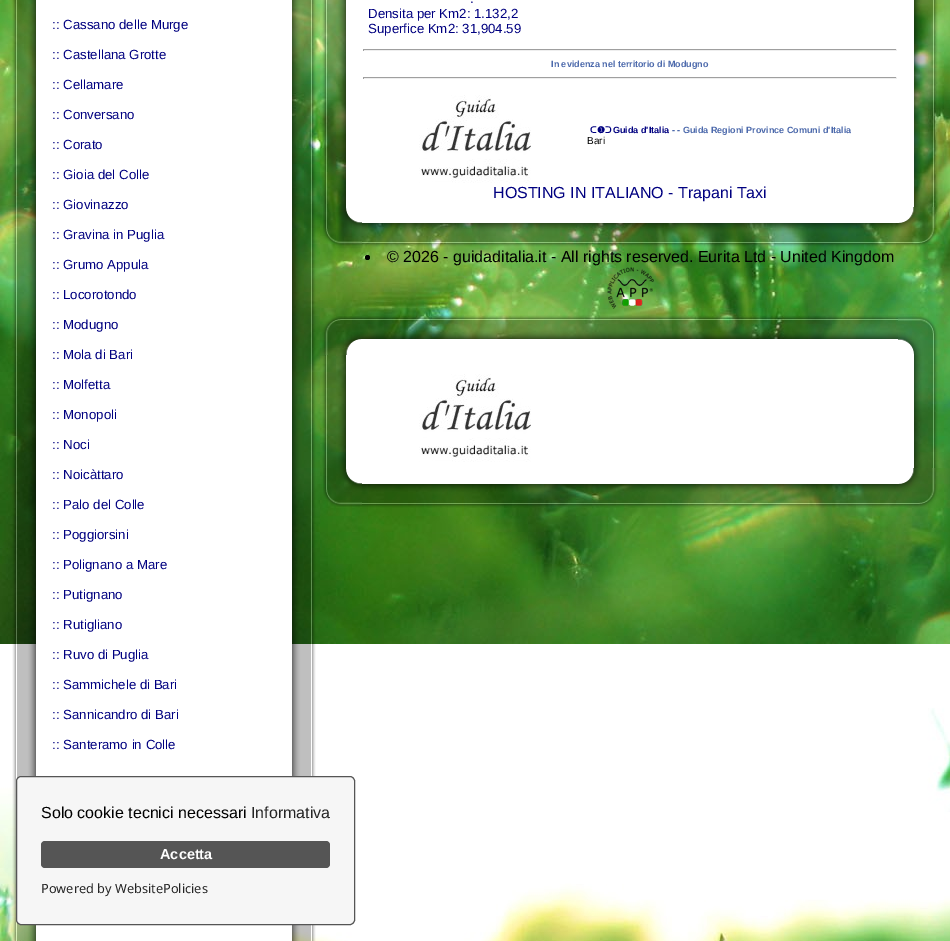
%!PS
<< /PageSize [950 941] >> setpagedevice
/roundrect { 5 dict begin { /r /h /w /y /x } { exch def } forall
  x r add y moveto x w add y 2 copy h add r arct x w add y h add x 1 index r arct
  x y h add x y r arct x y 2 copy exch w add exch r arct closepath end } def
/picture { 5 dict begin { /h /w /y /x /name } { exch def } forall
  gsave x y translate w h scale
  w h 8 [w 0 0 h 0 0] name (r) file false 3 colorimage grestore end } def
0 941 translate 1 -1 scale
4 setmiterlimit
1 setgray
0 0 950 941 rectfill
(img1.rgb) 0 0 950 941 picture
(img2.rgb) 12 0 40 941 picture
52 0 224 941 rectfill
/LiberationSans-Regular [13.25 0 0 -13.25 0 0] selectfont
0 0 0.502 setrgbcolor
52 29 moveto (:: Cassano delle Murge) show
52 59 moveto (:: Castellana Grotte) show
52 89 moveto (:: Cellamare) show
52 119 moveto (:: Conversano) show
52 149 moveto (:: Corato) show
52 179 moveto (:: Gioia del Colle) show
52 209 moveto (:: Giovinazzo) show
52 239 moveto (:: Gravina in Puglia) show
52 269 moveto (:: Grumo Appula) show
52 299 moveto (:: Locorotondo) show
52 329 moveto (:: Modugno) show
52 359 moveto (:: Mola di Bari) show
52 389 moveto (:: Molfetta) show
52 419 moveto (:: Monopoli) show
52 449 moveto (:: Noci) show
52 479 moveto (:: Noicàttaro) show
52 509 moveto (:: Palo del Colle) show
52 539 moveto (:: Poggiorsini) show
52 569 moveto (:: Polignano a Mare) show
52 599 moveto (:: Putignano) show
52 629 moveto (:: Rutigliano) show
52 659 moveto (:: Ruvo di Puglia) show
52 689 moveto (:: Sammichele di Bari) show
52 719 moveto (:: Sannicandro di Bari) show
52 749 moveto (:: Santeramo in Colle) show
(img3.rgb) 276 0 40 941 picture
(img4.rgb) 322 0 40 207 picture
1 setgray
362 0 536 207 rectfill
0 0 0.502 setrgbcolor
470 3 moveto (.) show
368 18 moveto (Densita per Km2: 1.132,2) show
368 33 moveto (Superfice Km2: 31,904.59) show
0.624 setgray
363 49 534 1 rectfill
0.933 setgray
896 49 1 2 rectfill
363 50 534 1 rectfill
0.624 setgray
363 49 1 2 rectfill
/LiberationSans-Bold [9 0 0 -9 0 0] selectfont
0.302 0.416 0.675 setrgbcolor
551 67 moveto (In evidenza nel territorio di Modugno) show
0.624 setgray
363 77 534 1 rectfill
0.933 setgray
896 77 1 2 rectfill
363 78 534 1 rectfill
0.624 setgray
363 77 1 2 rectfill
(img5.rgb) 419 95 112 88 picture
/DejaVuSans-Bold [9 0 0 -9 0 0] selectfont
0 0 0.502 setrgbcolor
590 133 moveto (ᑕ❶ᑐ) show
/LiberationSans-Bold [9 0 0 -9 0 0] selectfont
613 133 moveto (Guida d'Italia) show
0.302 0.416 0.675 setrgbcolor
672 133 moveto (- - Guida Regioni Province Comuni d'Italia) show
/LiberationSans-Regular [10 0 0 -10 0 0] selectfont
0 setgray
587 144 moveto (Bari) show
/LiberationSans-Regular [16 0 0 -16 0 0] selectfont
0 0 0.502 setrgbcolor
493 198 moveto (HOSTING IN ITALIANO - Trapani Taxi) show
(img6.rgb) 898 0 40 207 picture
(img7.rgb) 323 207 39 41 picture
(img8.rgb) 362 207 536 40 picture
(img9.rgb) 898 207 41 40 picture
0 setgray
newpath 367.5 257.5 2.5 0 360 arc closepath fill
387 262 moveto (© 2026 - guidaditalia.it - All rights reserved. Eurita Ltd - United Kingdom) show
(img10.rgb) 607 267 47 42 picture
(img11.rgb) 322 316 40 39 picture
(img12.rgb) 362 315 536 40 picture
(img13.rgb) 898 314 40 41 picture
(img14.rgb) 322 355 40 113 picture
1 setgray
362 355 536 113 rectfill
(img5.rgb) 419 374 112 88 picture
(img15.rgb) 898 355 40 113 picture
(img16.rgb) 323 468 39 39 picture
(img17.rgb) 362 468 536 40 picture
(img18.rgb) 898 468 40 40 picture
0.965 setgray
16.5 776.5 338 148 4.5 roundrect gsave fill grestore
0.333 setgray
stroke
0 setgray
41 818 moveto (Solo cookie tecnici necessari) show
0.145 setgray
251 818 moveto (Informativa) show
0.333 setgray
41 841 289 27 4 roundrect fill
/LiberationSans-Bold [14.5 0 0 -14.5 0 0] selectfont
1 setgray
160 859 moveto (Accetta) show
/NotoSans-Regular [12.75 0 0 -12.75 0 0] selectfont
0.145 setgray
41 893 moveto (Powered by WebsitePolicies) show
showpage
